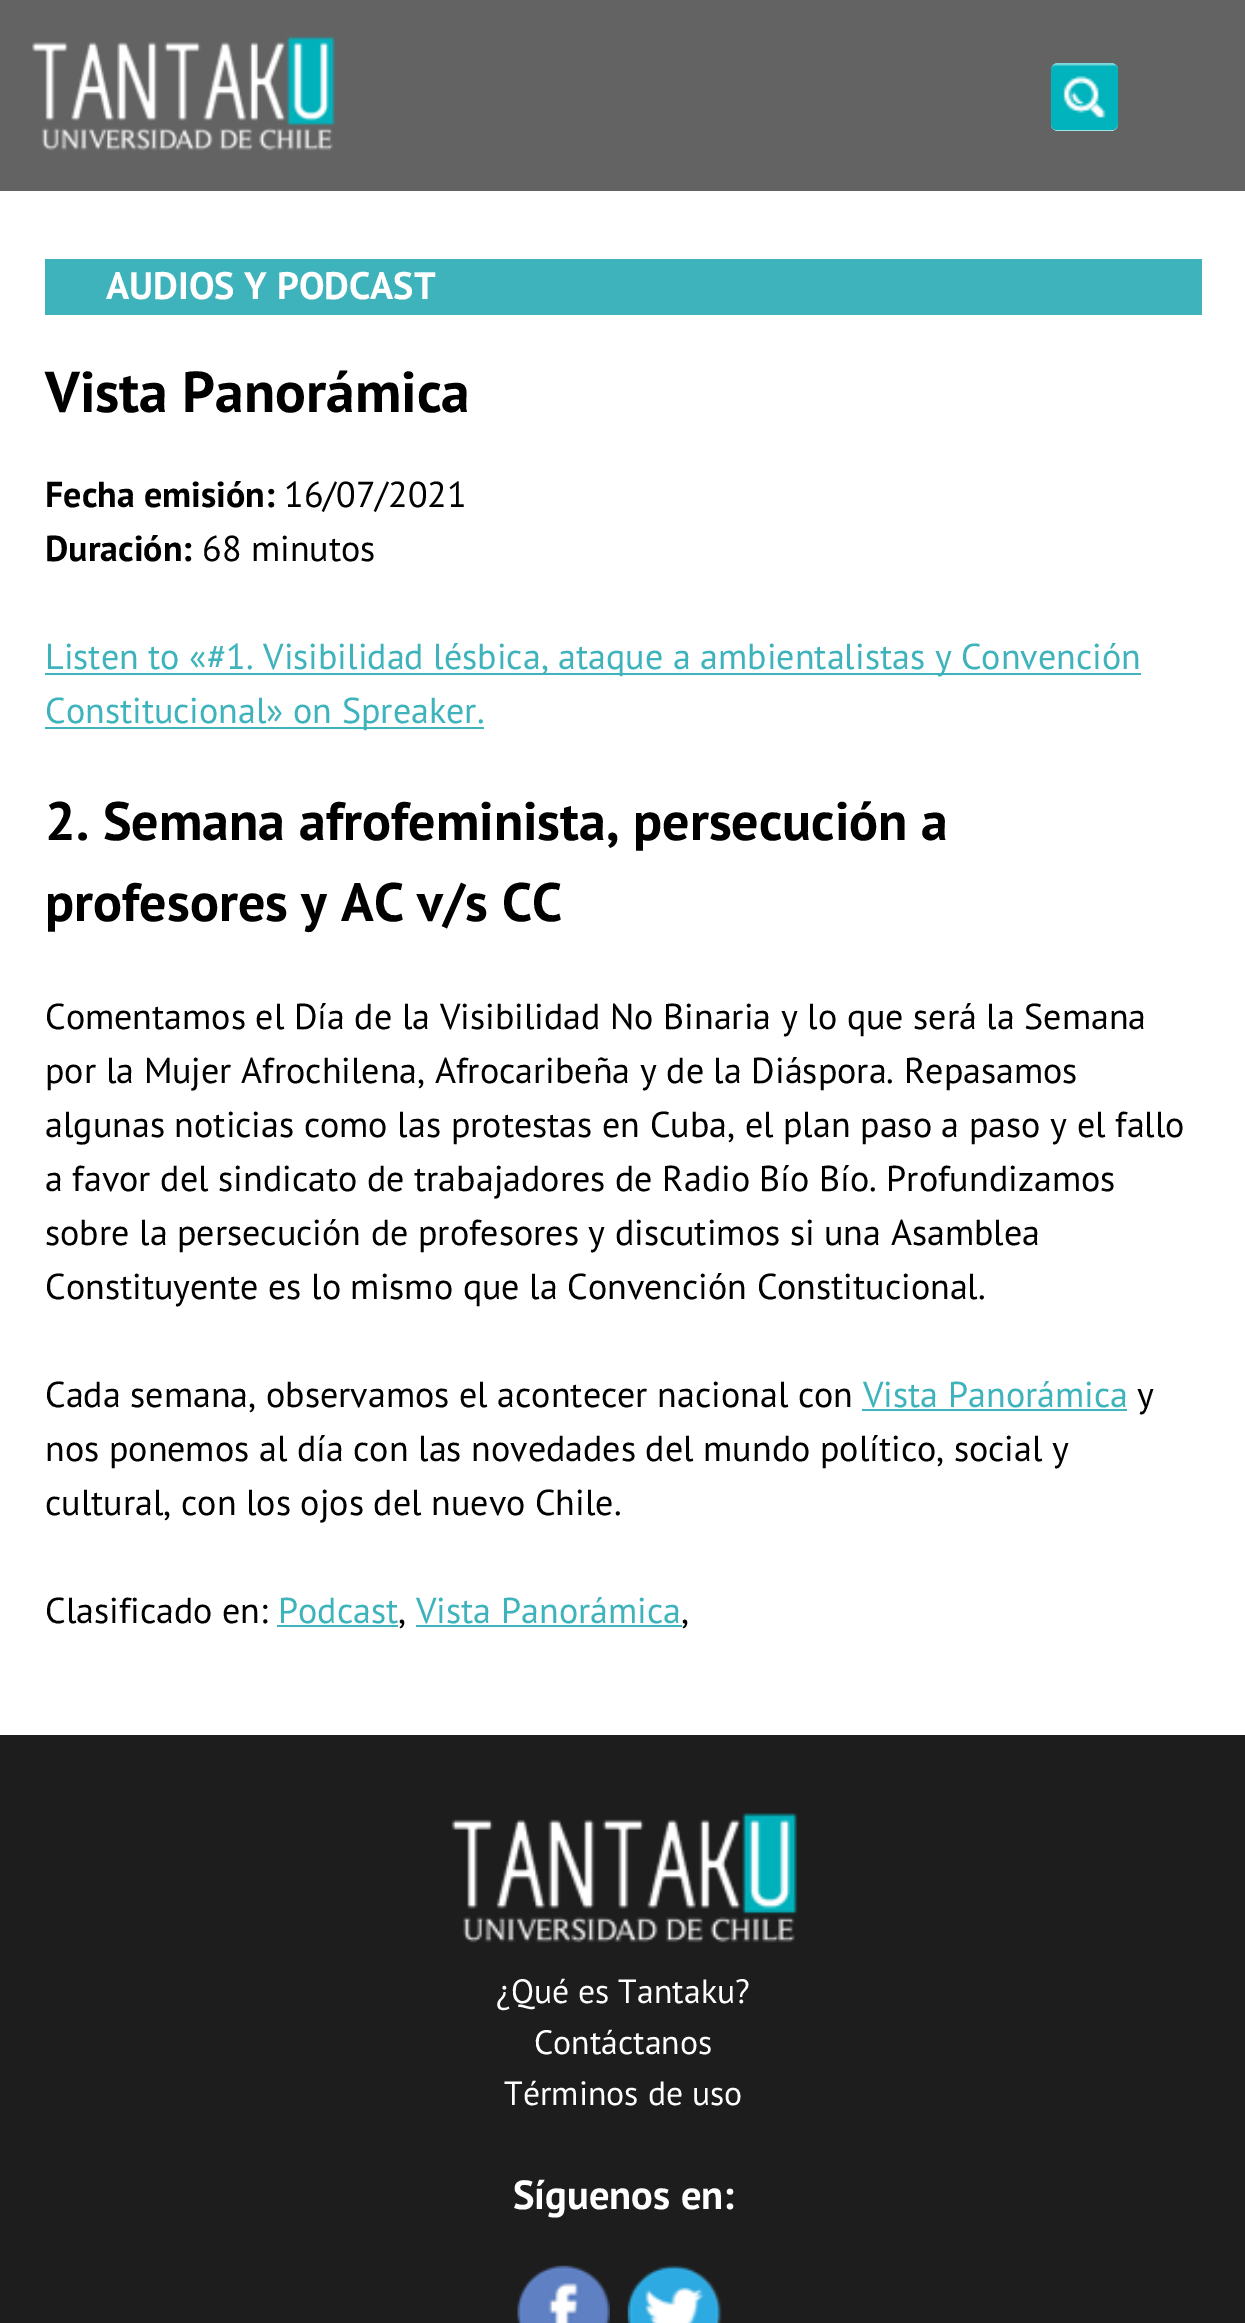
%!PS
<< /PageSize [1245 2323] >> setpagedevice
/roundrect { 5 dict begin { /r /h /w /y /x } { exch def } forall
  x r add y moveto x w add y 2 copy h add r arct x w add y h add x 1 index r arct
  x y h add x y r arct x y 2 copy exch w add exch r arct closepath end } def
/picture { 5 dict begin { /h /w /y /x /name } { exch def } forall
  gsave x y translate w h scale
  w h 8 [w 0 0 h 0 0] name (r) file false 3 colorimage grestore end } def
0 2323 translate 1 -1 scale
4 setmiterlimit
1 setgray
0 0 1245 2323 rectfill
0.388 setgray
0 0 1245 191 rectfill
(img1.rgb) 32 36 303 115 picture
1 setgray
1051 63 67 68 7 roundrect fill
(img2.rgb) 1050 63 69 68 picture
0.243 0.702 0.737 setrgbcolor
45 259 1157 56 rectfill
/PTSans-Bold [38.25 0 0 -38.25 0 0] selectfont
1 setgray
106 299 moveto (AUDIOS Y PODCAST) show
/PTSans-Bold [57.5 0 0 -57.5 0 0] selectfont
0 setgray
45 412 moveto (Vista Panorámica) show
/PTSans-Bold [36 0 0 -36 0 0] selectfont
45 507 moveto (Fecha emisión:) show
/PTSans-Regular [36 0 0 -36 0 0] selectfont
284 507 moveto (16/07/2021) show
/PTSans-Bold [36 0 0 -36 0 0] selectfont
45 561 moveto (Duración:) show
/PTSans-Regular [36 0 0 -36 0 0] selectfont
202 561 moveto (68 minutos) show
0.243 0.702 0.737 setrgbcolor
45 673 1096 2 rectfill
45 669 moveto (Listen to «#1. Visibilidad lésbica, ataque a ambientalistas y Convención) show
45 727 439 2 rectfill
45 723 moveto (Constitucional» on Spreaker.) show
/PTSans-Bold [54 0 0 -54 0 0] selectfont
0 setgray
45 840 moveto (2. Semana afrofeminista, persecución a) show
45 921 moveto (profesores y AC v/s CC) show
/PTSans-Regular [36 0 0 -36 0 0] selectfont
45 1029 moveto (Comentamos el Día de la Visibilidad No Binaria y lo que será la Semana) show
45 1083 moveto (por la Mujer Afrochilena, Afrocaribeña y de la Diáspora. Repasamos) show
45 1137 moveto (algunas noticias como las protestas en Cuba, el plan paso a paso y el fallo) show
45 1191 moveto (a favor del sindicato de trabajadores de Radio Bío Bío. Profundizamos) show
45 1245 moveto (sobre la persecución de profesores y discutimos si una Asamblea) show
45 1299 moveto (Constituyente es lo mismo que la Convención Constitucional.) show
45 1407 moveto (Cada semana, observamos el acontecer nacional con) show
0.243 0.702 0.737 setrgbcolor
863 1407 moveto (Vista Panorámica) show
862 1409 265 2 rectfill
0 setgray
1137 1407 moveto (y) show
45 1461 moveto (nos ponemos al día con las novedades del mundo político, social y) show
45 1515 moveto (cultural, con los ojos del nuevo Chile.) show
45 1623 moveto (Clasificado en:) show
0.243 0.702 0.737 setrgbcolor
278 1623 moveto (Podcast) show
0 setgray
398 1623 moveto (,) show
0.243 0.702 0.737 setrgbcolor
277 1625 121 2 rectfill
416 1625 266 2 rectfill
416 1623 moveto (Vista Panorámica) show
0 setgray
681 1623 moveto (,) show
0.114 setgray
0 1735 1245 588 rectfill
(img3.rgb) 451 1813 347 130 picture
/PTSans-Regular [33.75 0 0 -33.75 0 0] selectfont
1 setgray
496 2003 moveto (¿Qué es Tantaku?) show
534 2054 moveto (Contáctanos) show
504 2105 moveto (Términos de uso) show
/PTSans-Bold [40.5 0 0 -40.5 0 0] selectfont
513 2209 moveto (Síguenos en:) show
(img4.rgb) 517 2265 93 58 picture
(img5.rgb) 627 2265 95 58 picture
showpage
